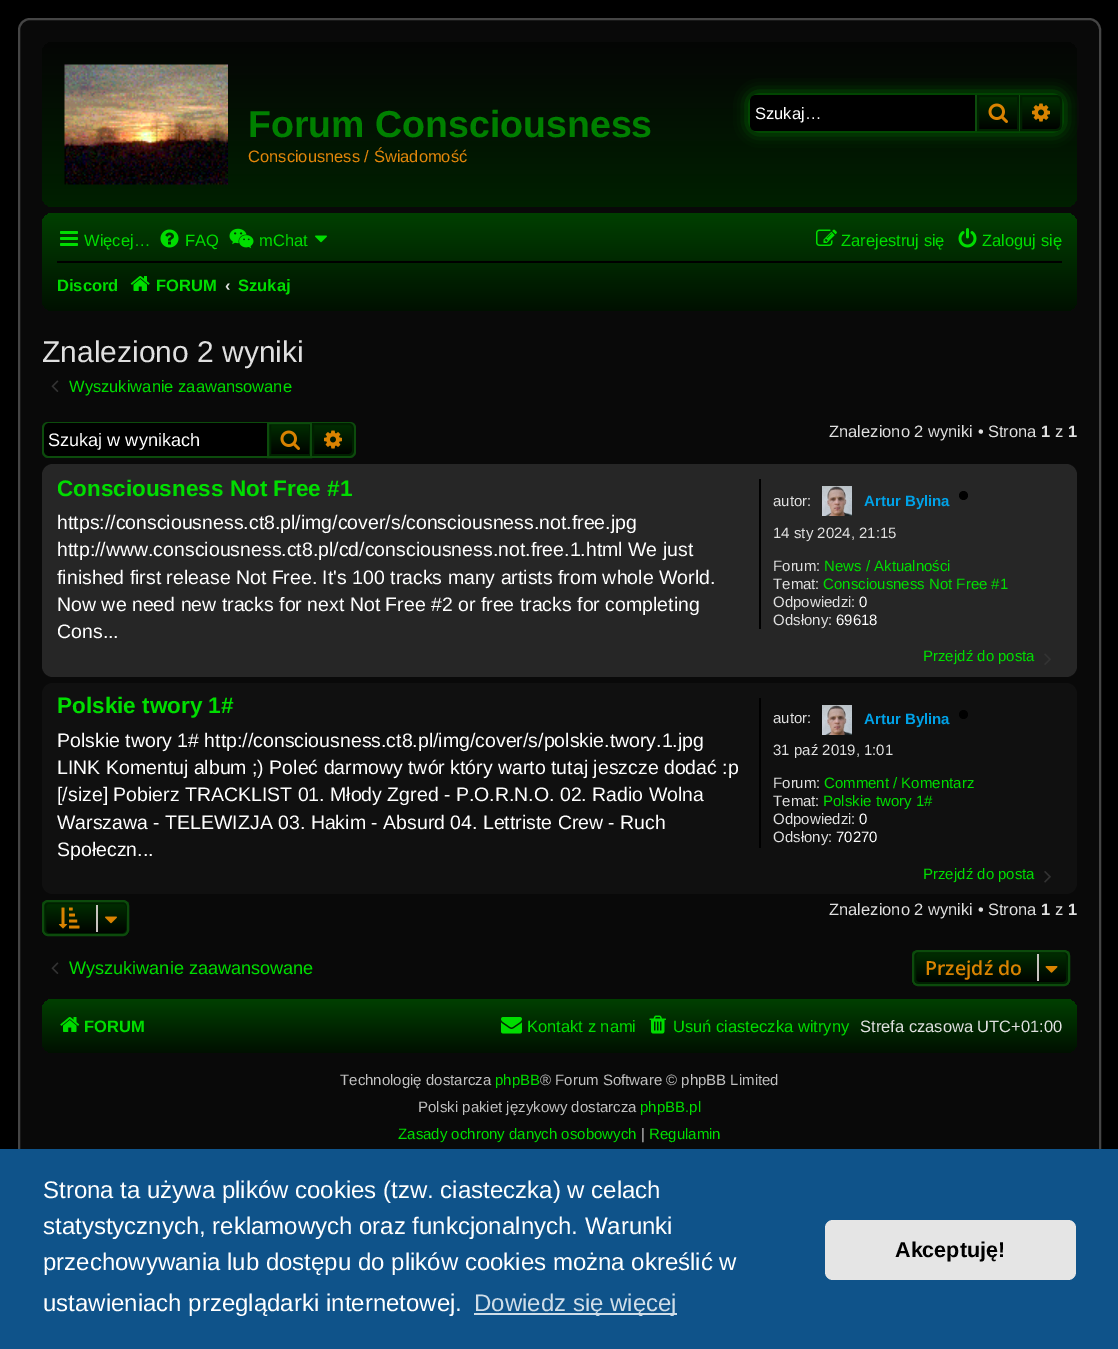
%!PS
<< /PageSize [1118 1349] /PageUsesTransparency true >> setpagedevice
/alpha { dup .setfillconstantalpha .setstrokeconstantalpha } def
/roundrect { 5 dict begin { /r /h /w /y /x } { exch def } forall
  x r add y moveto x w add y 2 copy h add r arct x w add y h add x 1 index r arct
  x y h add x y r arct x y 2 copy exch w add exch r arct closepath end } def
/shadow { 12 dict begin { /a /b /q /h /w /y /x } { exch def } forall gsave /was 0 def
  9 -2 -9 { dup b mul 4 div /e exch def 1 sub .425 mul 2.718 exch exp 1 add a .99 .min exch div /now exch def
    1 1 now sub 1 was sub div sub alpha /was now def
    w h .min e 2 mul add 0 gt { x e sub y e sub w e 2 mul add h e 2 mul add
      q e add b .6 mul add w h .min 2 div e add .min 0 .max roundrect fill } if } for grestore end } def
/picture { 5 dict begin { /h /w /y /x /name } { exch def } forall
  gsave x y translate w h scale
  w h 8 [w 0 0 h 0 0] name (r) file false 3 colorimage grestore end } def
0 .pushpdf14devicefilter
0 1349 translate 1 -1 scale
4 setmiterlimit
0 setgray
0 0 1118 1349 rectfill
0.035 setgray
19 19 1081 1168 11 roundrect gsave fill grestore
0.271 setgray
2 setlinewidth
stroke
gsave 42 42 1035 165 11 roundrect clip newpath
<< /ShadingType 2 /ColorSpace /DeviceRGB /Coords [560 42 560 207] /Extend [true true] /Function << /FunctionType 2 /Domain [0 1] /C0 [0.02 0.02 0.02] /C1 [0 0.125 0] /N 1 >> >> shfill grestore
(img1.rgb) 64 64 164 121 picture
/LiberationSans-Bold [37.5 0 0 -37.5 0 0] selectfont
0 0.502 0 setrgbcolor
248 137 moveto (Forum Consciousness) show
/LiberationSans-Regular [16.5 0 0 -16.5 0 0] selectfont
0.89 0.525 0.039 setrgbcolor
248 162 moveto (Consciousness / Świadomość) show
0 0.498 0 setrgbcolor
750 95 312 36 6 7.5 1 shadow
0 setgray
newpath 756 95 moveto 975 95 lineto 975 131 lineto 756 131 lineto 752.5 131 750 128.5 750 125 curveto 750 101 lineto 750 97.5 752.5 95 756 95 curveto closepath fill
1 setgray
755 119 moveto (Szukaj…) show
gsave newpath 979 97 moveto 1017 97 lineto 1017 129 lineto 979 129 lineto closepath clip newpath
<< /ShadingType 2 /ColorSpace /DeviceRGB /Coords [998 95 998 131] /Extend [true true] /Function << /FunctionType 2 /Domain [0 1] /C0 [0 0.188 0] /C1 [0 0 0] /N 1 >> >> shfill grestore
0 0.125 0 setrgbcolor
978 96 40 34 rectstroke
0.047 0.294 0.047 setrgbcolor
1019 95 1 36 rectfill
975 95 2 36 rectfill
(img2.rgb) 988 103 20 20 picture
gsave newpath 1021 96 moveto 1056 96 lineto 1059 96 1061 98 1061 101 curveto 1061 125 lineto 1061 128 1059 130 1056 130 curveto 1021 130 lineto closepath clip newpath
<< /ShadingType 2 /ColorSpace /DeviceRGB /Coords [1041 95 1041 131] /Extend [true true] /Function << /FunctionType 2 /Domain [0 1] /C0 [0 0.188 0] /C1 [0 0 0] /N 1 >> >> shfill grestore
0 0.125 0 setrgbcolor
newpath 1021 96 moveto 1056 96 lineto 1059 96 1061 98 1061 101 curveto 1061 125 lineto 1061 128 1059 130 1056 130 curveto 1021 130 lineto closepath stroke
(img3.rgb) 1032 103 18 19 picture
gsave 42 213 1035 98 11 roundrect clip newpath
<< /ShadingType 2 /ColorSpace /DeviceRGB /Coords [560 213 560 311] /Extend [true true] /Function << /FunctionType 2 /Domain [0 1] /C0 [0 0.251 0] /C1 [0 0.063 0] /N 1 >> >> shfill grestore
(img4.rgb) 60 231 18 15 picture
0 0.867 0 setrgbcolor
84 246 moveto (Więcej…) show
(img5.rgb) 160 229 19 19 picture
185 246 moveto (FAQ) show
(img6.rgb) 229 228 25 21 picture
259 246 moveto (mChat) show
(img7.rgb) 315 235 12 8 picture
(img8.rgb) 816 229 21 17 picture
841 246 moveto (Zarejestruj się) show
(img9.rgb) 958 228 19 20 picture
982 246 moveto (Zaloguj się) show
0 setgray
57 261 1005 2 rectfill
/LiberationSans-Bold [16.5 0 0 -16.5 0 0] selectfont
0 0.867 0 setrgbcolor
57 291 moveto (Discord) show
(img10.rgb) 130 276 20 15 picture
156 291 moveto (FORUM) show
0.878 setgray
225 291 moveto (‹) show
0 0.867 0 setrgbcolor
238 291 moveto (Szukaj) show
/LiberationSans-Regular [30 0 0 -30 0 0] selectfont
0.878 setgray
42 362 moveto (Znaleziono 2 wyniki) show
(img11.rgb) 51 380 8 12 picture
/LiberationSans-Regular [16.5 0 0 -16.5 0 0] selectfont
0 0.867 0 setrgbcolor
69 392 moveto (Wyszukiwanie zaawansowane) show
0 setgray
newpath 49 423 moveto 267 423 lineto 267 456 lineto 49 456 lineto 46 456 44 454 44 451 curveto 44 428 lineto 44 425 46 423 49 423 curveto closepath fill
0.047 0.294 0.047 setrgbcolor
newpath 48 422 moveto 267 422 lineto 267 458 lineto 48 458 lineto 45 458 42 455 42 452 curveto 42 428 lineto 42 424 45 422 48 422 curveto closepath 48 423 moveto 267 423 lineto 267 456 lineto 48 456 lineto 46 456 44 454 44 452 curveto 44 428 lineto 44 425 46 423 48 423 curveto closepath eofill
/LiberationSans-Regular [18.1 0 0 -18.1 0 0] selectfont
1 setgray
48 446 moveto (Szukaj w wynikach) show
gsave newpath 271 425 moveto 309 425 lineto 309 454 lineto 271 454 lineto closepath clip newpath
<< /ShadingType 2 /ColorSpace /DeviceRGB /Coords [290 423 290 456] /Extend [true true] /Function << /FunctionType 2 /Domain [0 1] /C0 [0 0.188 0] /C1 [0 0 0] /N 1 >> >> shfill grestore
0 0.125 0 setrgbcolor
270 424 40 31 rectstroke
0.047 0.294 0.047 setrgbcolor
268 423 43 34 rectstroke
(img12.rgb) 280 430 20 20 picture
gsave newpath 313 424 moveto 349 424 lineto 351 424 353 426 353 428 curveto 353 451 lineto 353 453 351 455 349 455 curveto 313 455 lineto closepath clip newpath
<< /ShadingType 2 /ColorSpace /DeviceRGB /Coords [333 423 333 456] /Extend [true true] /Function << /FunctionType 2 /Domain [0 1] /C0 [0 0.188 0] /C1 [0 0 0] /N 1 >> >> shfill grestore
0 0.125 0 setrgbcolor
newpath 313 424 moveto 349 424 lineto 351 424 353 426 353 428 curveto 353 451 lineto 353 453 351 455 349 455 curveto 313 455 lineto closepath stroke
0.047 0.294 0.047 setrgbcolor
newpath 312 422 moveto 350 422 lineto 353 422 356 424 356 428 curveto 356 452 lineto 356 455 353 458 350 458 curveto 312 458 lineto closepath 312 423 moveto 350 423 lineto 352 423 354 425 354 428 curveto 354 452 lineto 354 454 352 456 350 456 curveto 312 456 lineto closepath eofill
(img13.rgb) 324 430 18 19 picture
/LiberationSans-Regular [16.5 0 0 -16.5 0 0] selectfont
0.878 setgray
829 437 moveto (Znaleziono 2 wyniki • Strona) show
/LiberationSans-Bold [16.5 0 0 -16.5 0 0] selectfont
1041 437 moveto (1) show
/LiberationSans-Regular [16.5 0 0 -16.5 0 0] selectfont
1055 437 moveto (z) show
/LiberationSans-Bold [16.5 0 0 -16.5 0 0] selectfont
1068 437 moveto (1) show
0.149 setgray
42 464 1035 213 11 roundrect fill
/LiberationSans-Bold [22.5 0 0 -22.5 0 0] selectfont
0 0.867 0 setrgbcolor
57 496 moveto (Consciousness Not Free #1) show
/LiberationSans-Regular [19.5 0 0 -19.5 0 0] selectfont
1 setgray
57 529 moveto (https://consciousness.ct8.pl/img/cover/s/consciousness.not.free.jpg) show
57 556 moveto (http://www.consciousness.ct8.pl/cd/consciousness.not.free.1.html We just) show
57 584 moveto (finished first release Not Free. It's 100 tracks many artists from whole World.) show
57 611 moveto (Now we need new tracks for next Not Free #2 or free tracks for completing) show
57 638 moveto (Cons...) show
0 setgray
759 479 2 150 rectfill
/LiberationSans-Regular [15 0 0 -15 0 0] selectfont
0.878 setgray
773 506 moveto (autor:) show
(img14.rgb) 822 486 30 30 picture
/LiberationSans-Bold [15 0 0 -15 0 0] selectfont
0 0.635 0.91 setrgbcolor
864 506 moveto (Artur Bylina) show
0 setgray
newpath 963.5 495.5 4.5 0 360 arc closepath fill
/LiberationSans-Regular [15 0 0 -15 0 0] selectfont
0.878 setgray
773 538 moveto (14 sty 2024, 21:15) show
773 571 moveto (Forum:) show
0 0.867 0 setrgbcolor
824 571 moveto (News / Aktualności) show
0.878 setgray
773 589 moveto (Temat:) show
0 0.867 0 setrgbcolor
823 589 moveto (Consciousness Not Free #1) show
0.878 setgray
773 607 moveto (Odpowiedzi:) show
1 setgray
859 607 moveto (0) show
0.878 setgray
773 625 moveto (Odsłony:) show
1 setgray
836 625 moveto (69618) show
0 0.867 0 setrgbcolor
923 661 moveto (Przejdź do posta) show
(img15.rgb) 1044 653 7 12 picture
0.063 setgray
42 683 1035 211 11 roundrect fill
/LiberationSans-Bold [22.5 0 0 -22.5 0 0] selectfont
0 0.867 0 setrgbcolor
57 713 moveto (Polskie twory 1#) show
/LiberationSans-Regular [19.5 0 0 -19.5 0 0] selectfont
1 setgray
57 747 moveto (Polskie twory 1# http://consciousness.ct8.pl/img/cover/s/polskie.twory.1.jpg) show
57 774 moveto (LINK Komentuj album ;\) Poleć darmowy twór który warto tutaj jeszcze dodać :p) show
57 801 moveto ([/size] Pobierz TRACKLIST 01. Młody Zgred - P.O.R.N.O. 02. Radio Wolna) show
57 829 moveto (Warszawa - TELEWIZJA 03. Hakim - Absurd 04. Lettriste Crew - Ruch) show
57 856 moveto (Społeczn...) show
0 setgray
759 698 2 150 rectfill
/LiberationSans-Regular [15 0 0 -15 0 0] selectfont
0.878 setgray
773 723 moveto (autor:) show
(img14.rgb) 822 705 30 30 picture
/LiberationSans-Bold [15 0 0 -15 0 0] selectfont
0 0.635 0.91 setrgbcolor
864 724 moveto (Artur Bylina) show
0 setgray
newpath 963.5 714.5 4.5 0 360 arc closepath fill
/LiberationSans-Regular [15 0 0 -15 0 0] selectfont
0.878 setgray
773 755 moveto (31 paź 2019, 1:01) show
773 788 moveto (Forum:) show
0 0.867 0 setrgbcolor
824 788 moveto (Comment / Komentarz) show
0.878 setgray
773 806 moveto (Temat:) show
0 0.867 0 setrgbcolor
823 806 moveto (Polskie twory 1#) show
0.878 setgray
773 824 moveto (Odpowiedzi:) show
1 setgray
859 824 moveto (0) show
0.878 setgray
773 842 moveto (Odsłony:) show
1 setgray
836 842 moveto (70270) show
0 0.867 0 setrgbcolor
923 879 moveto (Przejdź do posta) show
(img16.rgb) 1044 871 7 12 picture
gsave
42 900 87 36 6 roundrect clip newpath
gsave newpath 42 902 moveto 129 902 lineto 129 935 lineto 42 935 lineto closepath clip newpath
<< /ShadingType 2 /ColorSpace /DeviceRGB /Coords [86 902 86 935] /Extend [true true] /Function << /FunctionType 2 /Domain [0 1] /C0 [0 0.188 0] /C1 [0 0 0] /N 1 >> >> shfill grestore
grestore
0 0.125 0 setrgbcolor
45 903 82 31 4 roundrect stroke
0.047 0.294 0.047 setrgbcolor
43 901 85 34 5 roundrect stroke
(img17.rgb) 58 907 22 22 picture
0.78 0.765 0.749 setrgbcolor
96 905 2 27 rectfill
(img18.rgb) 105 916 12 8 picture
/LiberationSans-Regular [16.5 0 0 -16.5 0 0] selectfont
0.878 setgray
829 915 moveto (Znaleziono 2 wyniki • Strona) show
/LiberationSans-Bold [16.5 0 0 -16.5 0 0] selectfont
1041 915 moveto (1) show
/LiberationSans-Regular [16.5 0 0 -16.5 0 0] selectfont
1055 915 moveto (z) show
/LiberationSans-Bold [16.5 0 0 -16.5 0 0] selectfont
1068 915 moveto (1) show
(img11.rgb) 51 962 8 12 picture
/LiberationSans-Regular [18.1 0 0 -18.1 0 0] selectfont
0 0.867 0 setrgbcolor
69 974 moveto (Wyszukiwanie zaawansowane) show
gsave
912 950 158 36 6 roundrect clip newpath
gsave newpath 912 951 moveto 1070 951 lineto 1070 984 lineto 912 984 lineto closepath clip newpath
<< /ShadingType 2 /ColorSpace /DeviceRGB /Coords [991 951 991 984] /Extend [true true] /Function << /FunctionType 2 /Domain [0 1] /C0 [0 0.188 0] /C1 [0 0 0] /N 1 >> >> shfill grestore
grestore
0 0.125 0 setrgbcolor
915 952 152 31 4 roundrect stroke
0.047 0.294 0.047 setrgbcolor
913 951 156 34 5 roundrect stroke
/OpenSans-SemiBold [19.5 0 0 -19.5 0 0] selectfont
0.855 0.514 0.004 setrgbcolor
925 975 moveto (Przejdź do) show
0.78 0.765 0.749 setrgbcolor
1037 954 2 27 rectfill
(img19.rgb) 1045 966 13 7 picture
gsave 42 999 1035 54 11 roundrect clip newpath
<< /ShadingType 2 /ColorSpace /DeviceRGB /Coords [560 999 560 1053] /Extend [true true] /Function << /FunctionType 2 /Domain [0 1] /C0 [0 0.251 0] /C1 [0 0.063 0] /N 1 >> >> shfill grestore
(img20.rgb) 60 1017 20 15 picture
/LiberationSans-Bold [16.5 0 0 -16.5 0 0] selectfont
0 0.867 0 setrgbcolor
84 1032 moveto (FORUM) show
(img21.rgb) 501 1017 21 17 picture
/LiberationSans-Regular [16.5 0 0 -16.5 0 0] selectfont
527 1032 moveto (Kontakt z nami) show
(img22.rgb) 649 1015 17 19 picture
673 1032 moveto (Usuń ciasteczka witryny) show
0.878 setgray
860 1032 moveto (Strefa czasowa UTC+01:00) show
/LiberationSans-Regular [15 0 0 -15 0 0] selectfont
0.753 setgray
340 1085 moveto (Technologię dostarcza) show
0 0.867 0 setrgbcolor
495 1085 moveto (phpBB) show
0.753 setgray
540 1085 moveto (® Forum Software © phpBB Limited) show
418 1112 moveto (Polski pakiet językowy dostarcza) show
0 0.867 0 setrgbcolor
640 1112 moveto (phpBB.pl) show
398 1139 moveto (Zasady ochrony danych osobowych) show
0.753 setgray
641 1139 moveto (|) show
0 0.867 0 setrgbcolor
649 1139 moveto (Regulamin) show
0.059 0.325 0.541 setrgbcolor
0 1149 1118 200 rectfill
/LiberationSans-Regular [24 0 0 -24 0 0] selectfont
1 setgray
43 1198 moveto (Strona ta używa plików cookies \(tzw. ciasteczka\) w celach) show
43 1234 moveto (statystycznych, reklamowych oraz funkcjonalnych. Warunki) show
43 1270 moveto (przechowywania lub dostępu do plików cookies można określić w) show
43 1311 moveto (ustawieniach przeglądarki internetowej.) show
0.812 0.867 0.91 setrgbcolor
474 1313 203 2 rectfill
474 1311 moveto (Dowiedz się więcej) show
0.898 setgray
825 1220 251 60 8 roundrect fill
/LiberationSans-Bold [21.5 0 0 -21.5 0 0] selectfont
0 setgray
895 1257 moveto (Akceptuję!) show
.poppdf14devicefilter showpage
